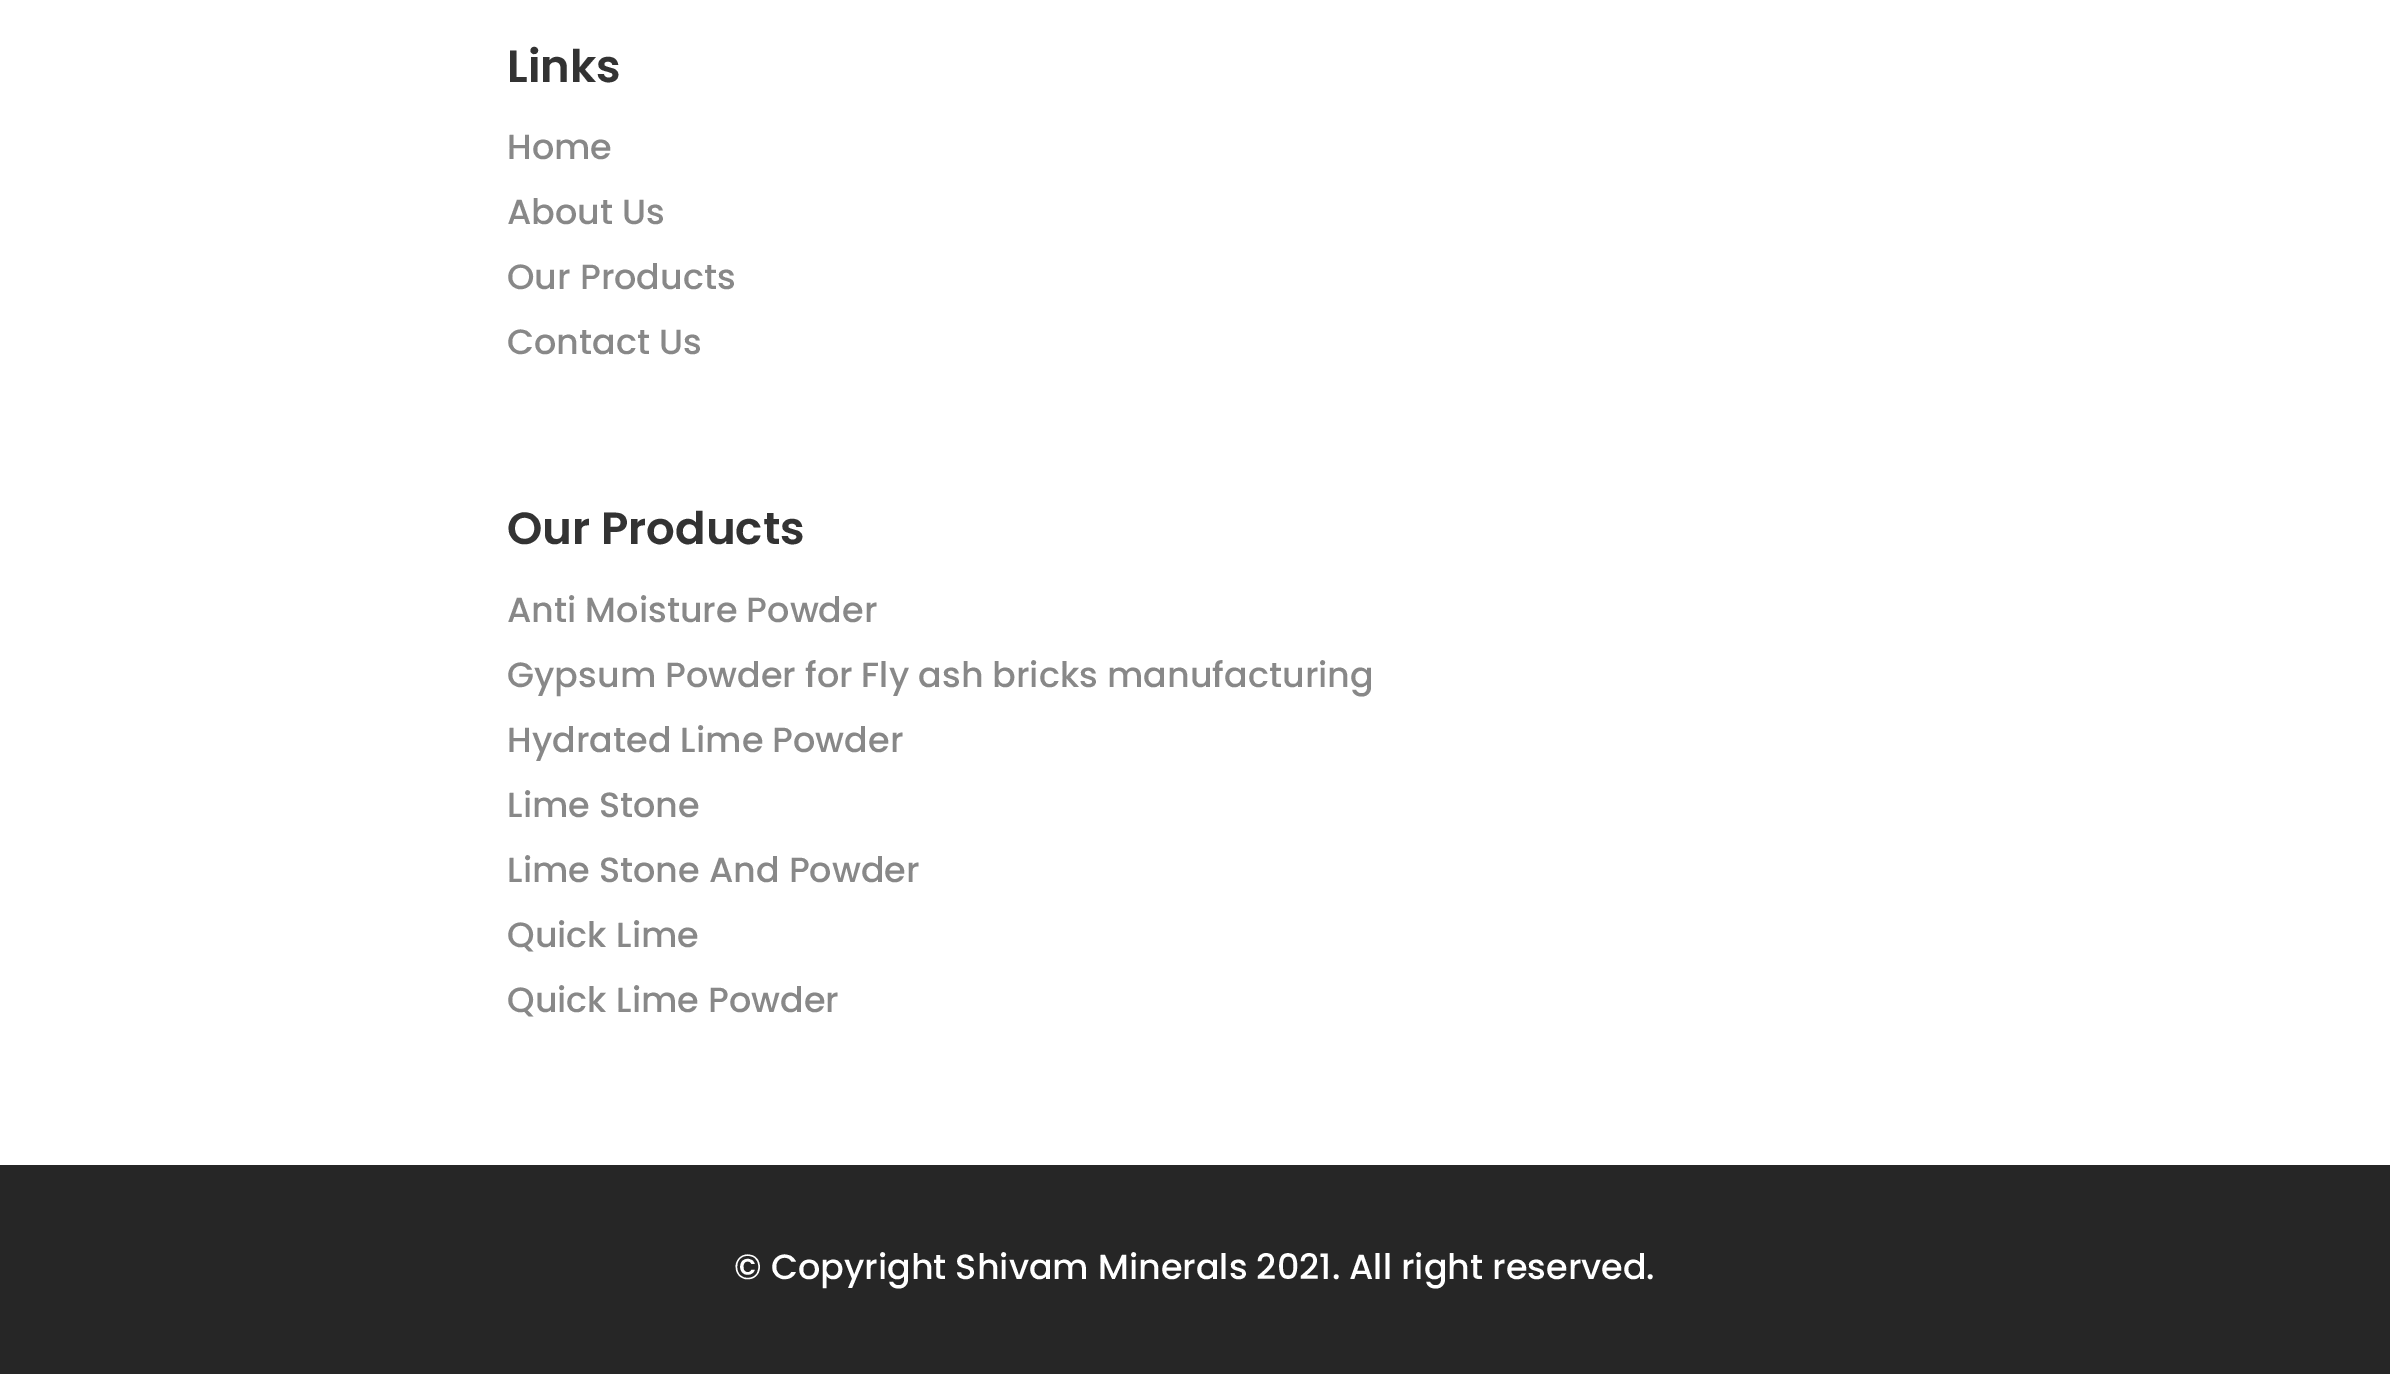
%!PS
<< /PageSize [2390 1374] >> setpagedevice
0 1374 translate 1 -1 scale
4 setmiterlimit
1 setgray
0 0 2390 1374 rectfill
/Poppins-SemiBold [45 0 0 -45 0 0] selectfont
0.2 setgray
507 82 moveto (Links) show
/Poppins-Medium [35 0 0 -35 0 0] selectfont
0.533 setgray
507 159 moveto (Home) show
507 224 moveto (About Us) show
507 289 moveto (Our Products) show
507 354 moveto (Contact Us) show
/Poppins-SemiBold [45 0 0 -45 0 0] selectfont
0.2 setgray
507 544 moveto (Our Products) show
/Poppins-Medium [35 0 0 -35 0 0] selectfont
0.533 setgray
507 622 moveto (Anti Moisture Powder) show
507 687 moveto (Gypsum Powder for Fly ash bricks manufacturing) show
507 752 moveto (Hydrated Lime Powder) show
507 817 moveto (Lime Stone) show
507 882 moveto (Lime Stone And Powder) show
507 947 moveto (Quick Lime) show
507 1012 moveto (Quick Lime Powder) show
0.149 setgray
0 1165 2390 209 rectfill
1 setgray
734 1279 moveto (© Copyright Shivam Minerals 2021. All right reserved.) show
showpage
